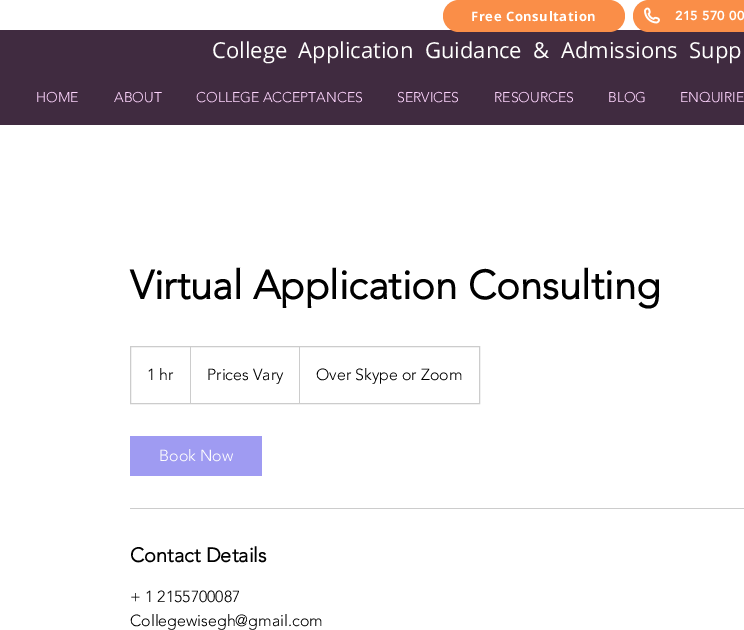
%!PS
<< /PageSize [744 630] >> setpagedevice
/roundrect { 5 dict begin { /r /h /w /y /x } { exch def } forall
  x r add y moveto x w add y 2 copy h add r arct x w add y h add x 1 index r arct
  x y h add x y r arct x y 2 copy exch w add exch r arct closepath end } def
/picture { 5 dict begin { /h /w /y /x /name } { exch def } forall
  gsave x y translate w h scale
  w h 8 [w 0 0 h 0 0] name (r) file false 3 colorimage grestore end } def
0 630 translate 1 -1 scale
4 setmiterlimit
1 setgray
0 0 744 630 rectfill
0.251 0.169 0.251 setrgbcolor
0 30 744 95 rectfill
0.98 0.557 0.282 setrgbcolor
443 0 182 32 16 roundrect fill
/OpenSans-Bold [13 0 0 -13 0 0] selectfont
1 1 0.996 setrgbcolor
471 21 moveto 0.6 0 (Free Consultation) ashow
0.98 0.557 0.282 setrgbcolor
633 0 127 32 16 roundrect fill
(img1.rgb) 644 7 16 17 picture
/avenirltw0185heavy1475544-Black [13 0 0 -13 0 0] selectfont
1 1 0.996 setrgbcolor
675 20 moveto (215 570 00) show
/OpenSans-Regular [22 0 0 -22 0 0] selectfont
212 58 moveto (College  Application  Guidance  &  Admissions  Supp) show
/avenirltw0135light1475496-Light [14 0 0 -14 0 0] selectfont
1 0.839 1 setrgbcolor
36 102 moveto (HOME) show
114 102 moveto (ABOUT) show
196 102 moveto (COLLEGE ACCEPTANCES) show
397 102 moveto (SERVICES) show
494 102 moveto (RESOURCES) show
608 102 moveto (BLOG) show
680 102 moveto (ENQUIRIE) show
/avenirltw0135light1475496-Bold [40 0 0 -40 0 0] selectfont
0 setgray
130 299 moveto (Virtual Application Consulting) show
0.8 setgray
130.5 346.5 349 57 rectstroke
/avenirltw0135light1475496-Light [16 0 0 -16 0 0] selectfont
0 setgray
147 380 moveto (1 hr) show
0.8 setgray
newpath 190 403 moveto 190 346 lineto 191 347 lineto 191 403 lineto closepath fill
0 setgray
207 380 moveto (Prices Vary) show
0.8 setgray
newpath 299 403 moveto 299 346 lineto 300 347 lineto 300 403 lineto closepath fill
0 setgray
316 380 moveto (Over Skype or Zoom) show
0.624 0.608 0.949 setrgbcolor
130 436 132 40 rectfill
1 1 0.996 setrgbcolor
159 461 moveto (Book Now) show
0.8 setgray
130 508 614 1 rectfill
/avenirltw0135light1475496-Bold [20 0 0 -20 0 0] selectfont
0 setgray
130 562 moveto (Contact Details) show
/avenirltw0135light1475496-Light [16 0 0 -16 0 0] selectfont
130 602 moveto (+ 1 2155700087) show
130 626 moveto (Collegewisegh@gmail.com) show
showpage
